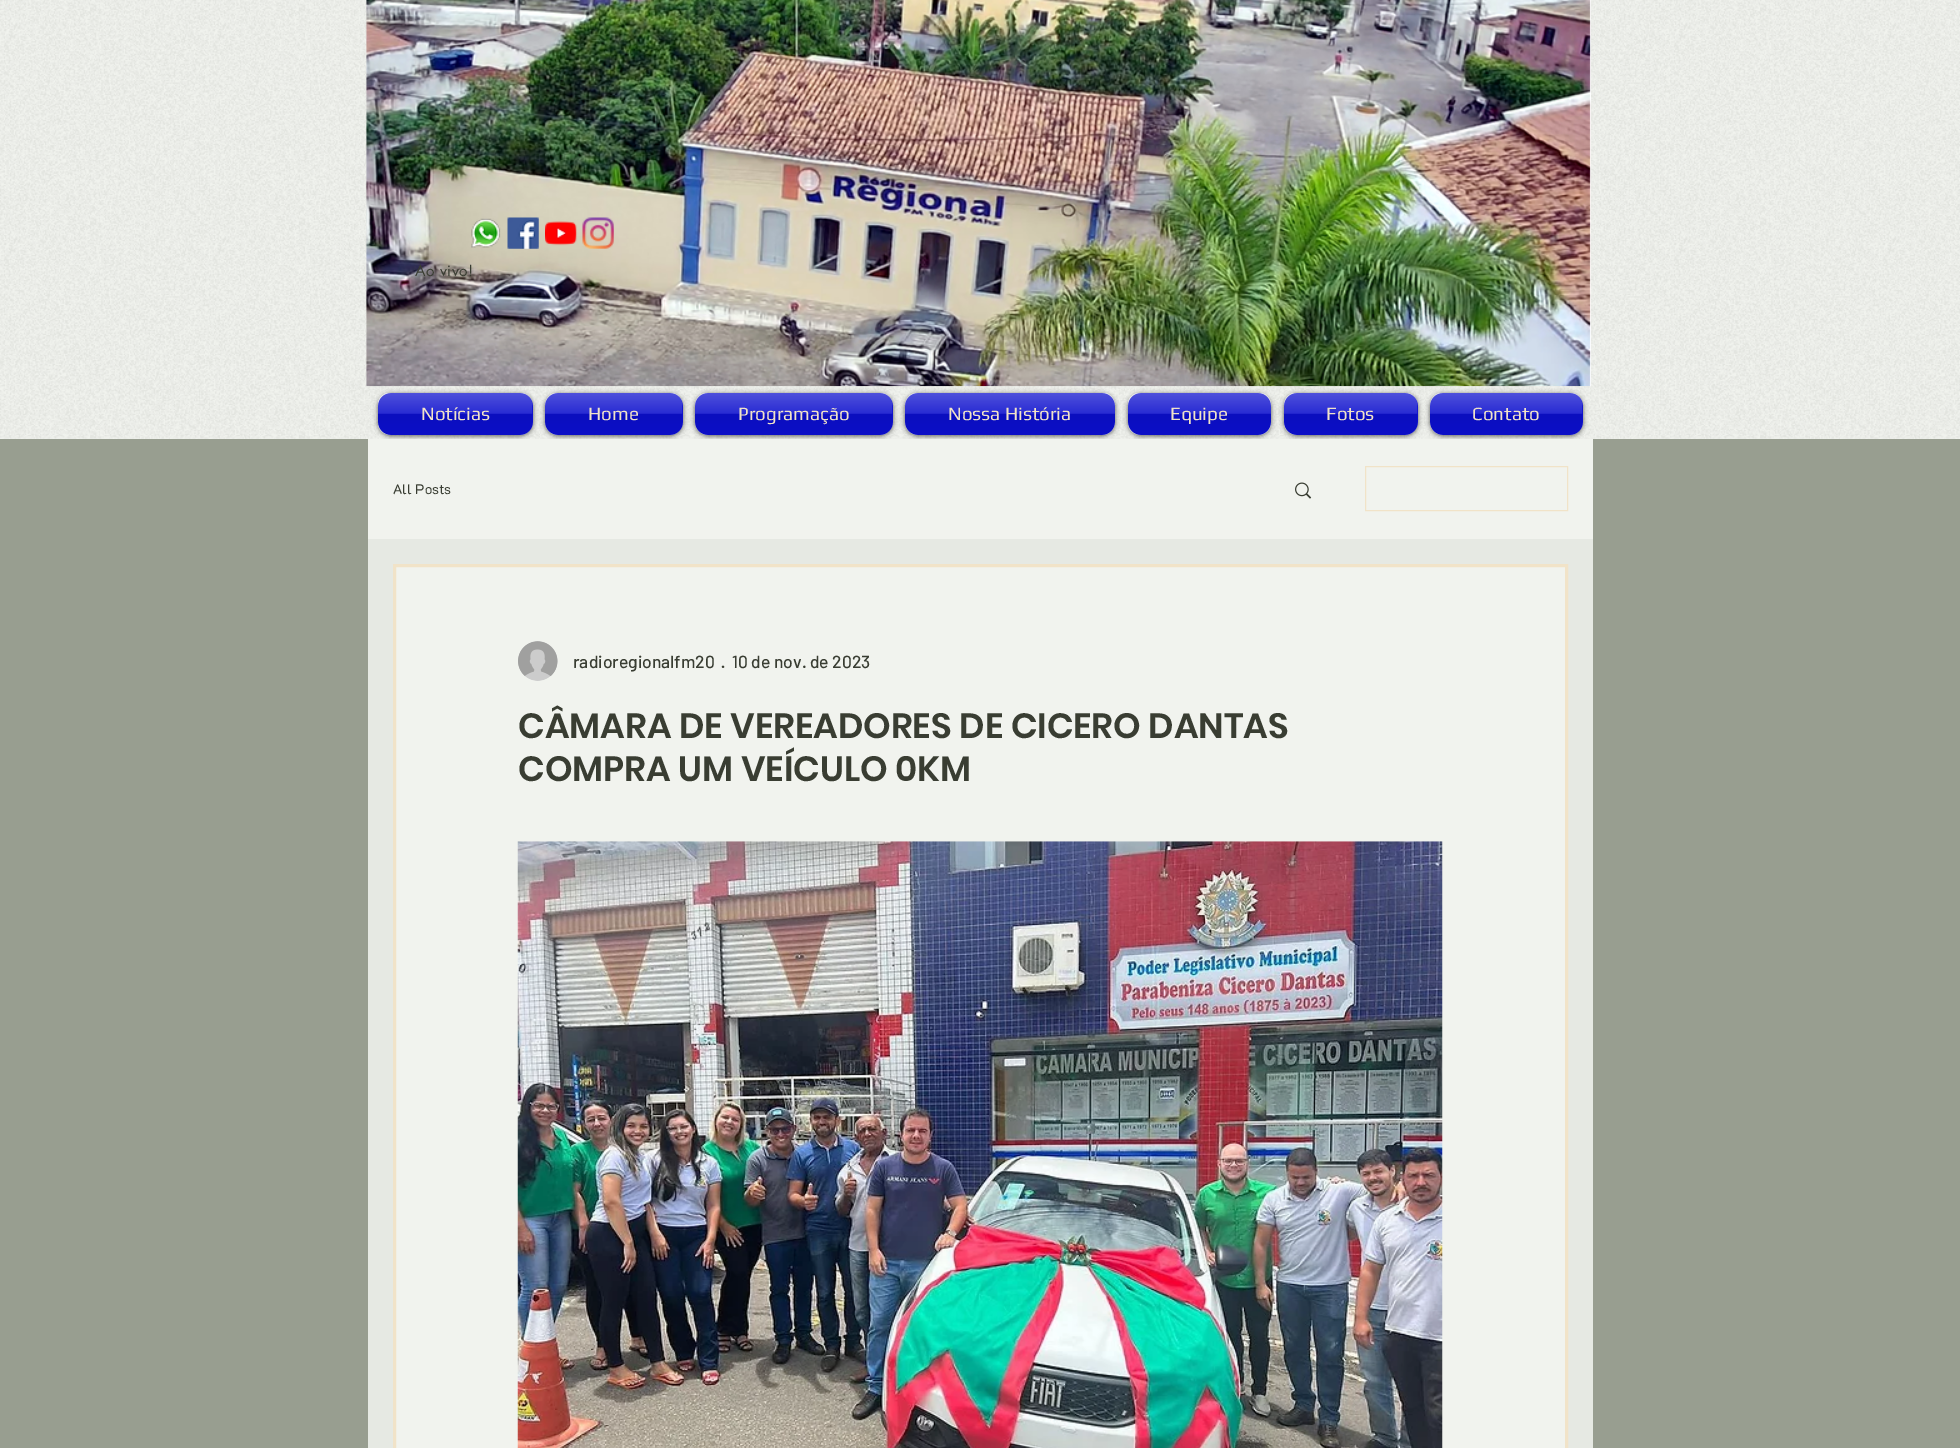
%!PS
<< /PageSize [1960 1448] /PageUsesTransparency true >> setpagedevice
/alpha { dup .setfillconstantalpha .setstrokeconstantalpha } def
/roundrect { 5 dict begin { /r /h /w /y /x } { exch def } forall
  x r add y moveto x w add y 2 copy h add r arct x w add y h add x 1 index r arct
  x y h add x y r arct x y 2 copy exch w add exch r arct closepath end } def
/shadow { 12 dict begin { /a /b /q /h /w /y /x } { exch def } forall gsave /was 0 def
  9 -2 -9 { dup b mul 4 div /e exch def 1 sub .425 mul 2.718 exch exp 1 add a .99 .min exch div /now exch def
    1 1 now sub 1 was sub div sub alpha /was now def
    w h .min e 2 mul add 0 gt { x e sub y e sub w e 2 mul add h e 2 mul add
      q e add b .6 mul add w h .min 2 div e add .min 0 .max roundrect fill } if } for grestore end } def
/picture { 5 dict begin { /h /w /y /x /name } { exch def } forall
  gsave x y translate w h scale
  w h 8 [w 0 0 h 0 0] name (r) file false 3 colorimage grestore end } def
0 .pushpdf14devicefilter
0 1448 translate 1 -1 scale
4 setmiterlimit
0.596 0.62 0.565 setrgbcolor
0 0 1960 1448 rectfill
0.945 0.953 0.933 setrgbcolor
0 0 1960 439 rectfill
(img1.rgb) 0 0 1960 439 picture
(img2.rgb) 366 0 1225 387 picture
(img3.rgb) 471 218 30 30 picture
(img4.rgb) 507 217 32 32 picture
(img5.rgb) 545 221 32 25 picture
(img6.rgb) 582 217 32 32 picture
/futura-Regular [15 0 0 -15 0 0] selectfont
0.224 0.239 0.196 setrgbcolor
415 276 moveto 0.5 0 (Ao vivo!) ashow
0 setgray
378 394 155 42 13 2.5 0.6 shadow
0.047 0.059 0.804 setrgbcolor
378 393 155 42 13 roundrect fill
(img7.rgb) 378 393 155 42 picture
/Play-Regular [18.75 0 0 -18.75 0 0] selectfont
0.945 0.89 0.784 setrgbcolor
421 420 moveto (Notícias) show
0 setgray
545 394 138 42 13 2.5 0.6 shadow
0.047 0.059 0.804 setrgbcolor
545 393 138 42 13 roundrect fill
(img8.rgb) 545 393 138 42 picture
0.945 0.89 0.784 setrgbcolor
588 420 moveto (Home) show
0 setgray
695 394 198 42 13 2.5 0.6 shadow
0.047 0.059 0.804 setrgbcolor
695 393 198 42 13 roundrect fill
(img9.rgb) 695 393 198 42 picture
0.945 0.89 0.784 setrgbcolor
738 420 moveto (Programação) show
0 setgray
905 394 210 42 13 2.5 0.6 shadow
0.047 0.059 0.804 setrgbcolor
905 393 210 42 13 roundrect fill
(img10.rgb) 905 393 210 42 picture
0.945 0.89 0.784 setrgbcolor
948 420 moveto (Nossa História) show
0 setgray
1128 394 143 42 13 2.5 0.6 shadow
0.047 0.059 0.804 setrgbcolor
1128 393 143 42 13 roundrect fill
(img11.rgb) 1128 393 143 42 picture
0.945 0.89 0.784 setrgbcolor
1170 420 moveto (Equipe) show
0 setgray
1284 394 134 42 13 2.5 0.6 shadow
0.047 0.059 0.804 setrgbcolor
1284 393 134 42 13 roundrect fill
(img12.rgb) 1284 393 134 42 picture
0.945 0.89 0.784 setrgbcolor
1326 420 moveto (Fotos) show
0 setgray
1430 394 153 42 13 2.5 0.6 shadow
0.047 0.059 0.804 setrgbcolor
1430 393 153 42 13 roundrect fill
(img13.rgb) 1430 393 153 42 picture
0.945 0.89 0.784 setrgbcolor
1472 420 moveto (Contato) show
0.88 alpha
0.945 0.953 0.933 setrgbcolor
368 539 1225 909 rectfill
1 alpha
368 439 1225 100 rectfill
/K2D-Regular [13.75 0 0 -13.75 0 0] selectfont
0.224 0.239 0.196 setrgbcolor
393 494 moveto (All Posts) show
(img14.rgb) 1295 482 17 17 picture
0.945 0.89 0.784 setrgbcolor
1365.5 466.5 202 44 rectstroke
0.945 0.953 0.933 setrgbcolor
newpath 394.5 565.5 moveto 1566.5 565.5 lineto 1566.5 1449.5 lineto 394.5 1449.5 lineto closepath gsave fill grestore
0.945 0.89 0.784 setrgbcolor
3 setlinewidth
stroke
(img15.rgb) 518 641 40 40 picture
/Barlow-Medium [17.5 0 0 -17.5 0 0] selectfont
0.224 0.239 0.196 setrgbcolor
573 668 moveto (radioregionalfm20) show
722 668 moveto (·) show
732 668 moveto (10 de nov. de 2023) show
/Poppins-SemiBold [35 0 0 -35 0 0] selectfont
518 738 moveto (CÂMARA DE VEREADORES DE CICERO DANTAS) show
518 781 moveto (COMPRA UM VEÍCULO 0KM) show
(img16.rgb) 517 841 926 607 picture
.poppdf14devicefilter showpage
